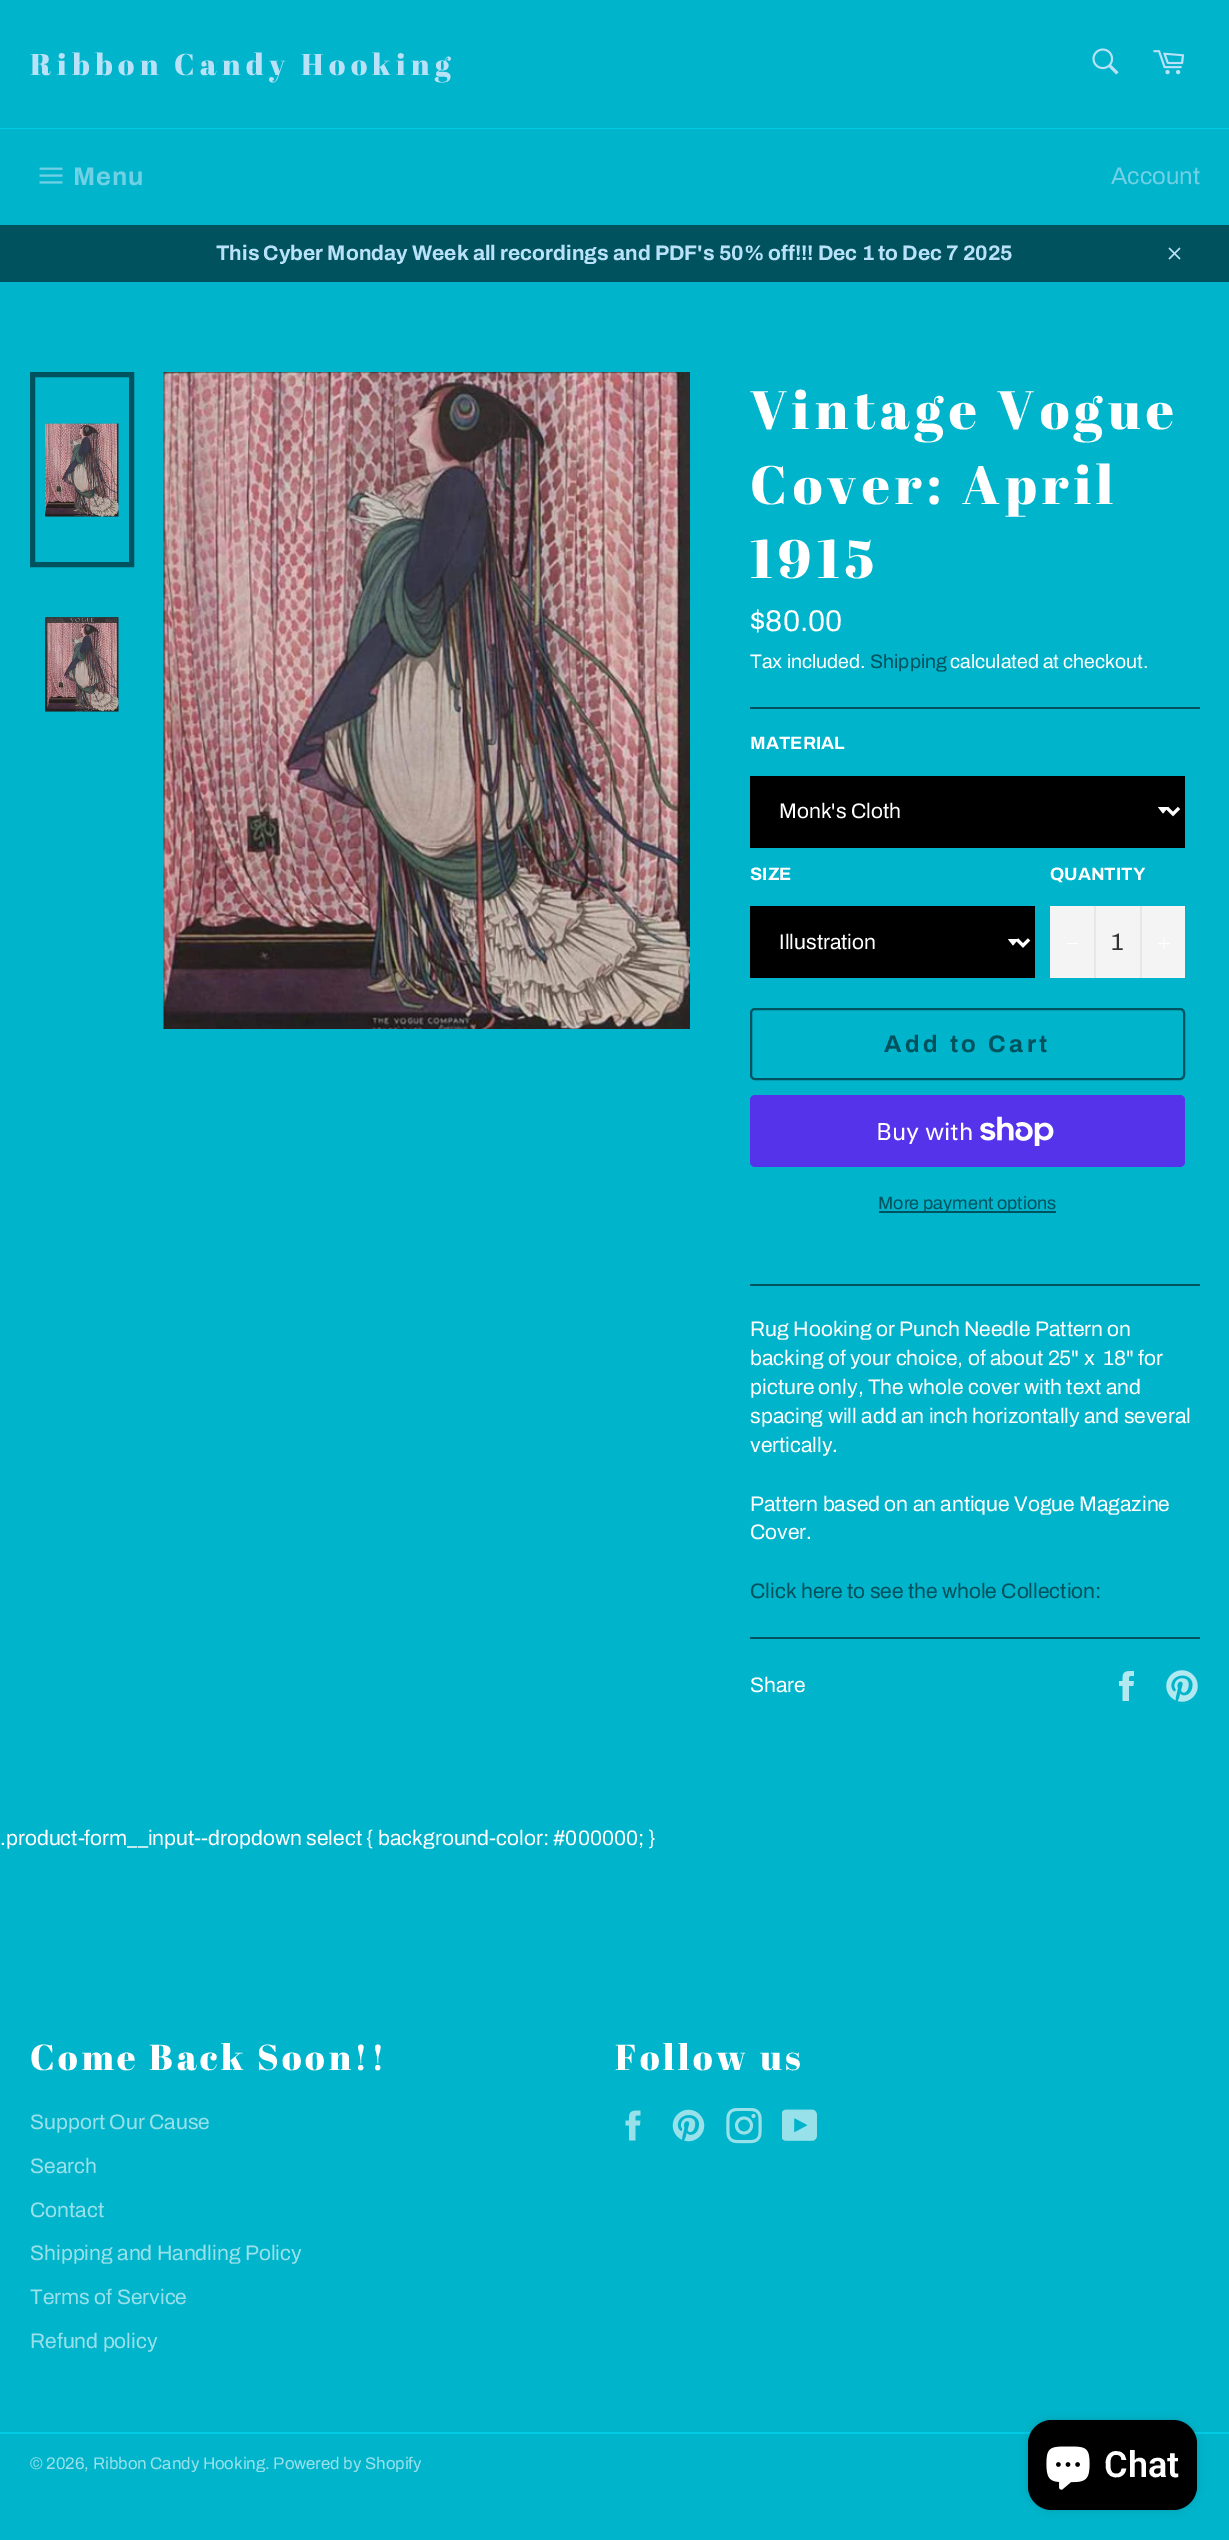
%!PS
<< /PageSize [1229 2540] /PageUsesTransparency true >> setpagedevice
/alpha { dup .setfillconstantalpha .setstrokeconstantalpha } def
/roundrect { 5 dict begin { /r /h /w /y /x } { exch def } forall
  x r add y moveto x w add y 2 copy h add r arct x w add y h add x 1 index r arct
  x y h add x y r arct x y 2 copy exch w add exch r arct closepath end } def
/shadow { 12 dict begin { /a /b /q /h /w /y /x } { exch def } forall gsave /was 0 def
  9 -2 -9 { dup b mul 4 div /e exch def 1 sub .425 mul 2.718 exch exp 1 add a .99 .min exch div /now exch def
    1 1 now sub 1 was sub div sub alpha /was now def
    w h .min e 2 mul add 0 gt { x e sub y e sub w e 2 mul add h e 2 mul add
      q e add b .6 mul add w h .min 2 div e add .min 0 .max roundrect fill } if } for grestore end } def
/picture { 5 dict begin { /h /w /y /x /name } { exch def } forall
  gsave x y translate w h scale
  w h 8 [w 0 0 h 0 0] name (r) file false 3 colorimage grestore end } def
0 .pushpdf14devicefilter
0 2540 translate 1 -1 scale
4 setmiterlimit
0 0.706 0.796 setrgbcolor
0 0 1229 2540 rectfill
/AbrilFatface-Regular [30 0 0 -30 0 0] selectfont
0.725 0.886 0.973 setrgbcolor
30 75 moveto 5.4 0 (Ribbon Candy Hooking) ashow
(img1.rgb) 1092 48 27 27 picture
(img2.rgb) 1153 50 31 25 picture
0 0.796 0.898 setrgbcolor
0 128 1229 1 rectfill
(img3.rgb) 39 167 24 17 picture
/Archivo-Bold [25.5 0 0 -25.5 0 0] selectfont
0.435 0.816 0.902 setrgbcolor
73 185 moveto 1 0 (Menu) ashow
/Archivo-Regular [24 0 0 -24 0 0] selectfont
1111 184 moveto (Account) show
0 0.322 0.369 setrgbcolor
0 225 1229 57 rectfill
/Archivo-Bold [21 0 0 -21 0 0] selectfont
0.725 0.886 0.973 setrgbcolor
216 260 moveto (This Cyber Monday Week all recordings and PDF's 50% off!!! Dec 1 to Dec 7 2025) show
(img4.rgb) 1168 247 13 13 picture
(img5.rgb) 45 423 74 94 picture
0 0.322 0.369 setrgbcolor
5 setlinewidth
32.5 374.5 99 190 rectstroke
(img6.rgb) 45 617 74 95 picture
(img7.rgb) 163 372 527 657 picture
/AbrilFatface-Regular [54 0 0 -54 0 0] selectfont
1 setgray
750 429 moveto 5.4 0 (Vintage Vogue) ashow
750 504 moveto 5.4 0 (Cover: April) ashow
750 578 moveto 5.4 0 (1915) ashow
/Archivo-Regular [30 0 0 -30 0 0] selectfont
750 631 moveto ($80.00) show
/Archivo-Regular [19.5 0 0 -19.5 0 0] selectfont
750 668 moveto (Tax included.) show
0 0.322 0.369 setrgbcolor
870 668 moveto (Shipping) show
1 setgray
950 668 moveto (calculated at checkout.) show
0 0.322 0.369 setrgbcolor
750 707 450 2 rectfill
/Archivo-Bold [18 0 0 -18 0 0] selectfont
1 setgray
750 749 moveto (MATERIAL) show
0 setgray
750 776 435 72 rectfill
1 setgray
newpath 1158 807 moveto 1163 813.5 lineto 1168.5 807 lineto closepath fill
3 setlinewidth
newpath 1167 808 moveto 1173 814 lineto 1179 808 lineto stroke
/Archivo-Regular [21 0 0 -21 0 0] selectfont
779 818 moveto (Monk's Cloth) show
/Archivo-Bold [18 0 0 -18 0 0] selectfont
750 880 moveto (SIZE) show
0 setgray
750 906 285 72 rectfill
1 setgray
newpath 1008 939 moveto 1013 945.5 lineto 1018.5 939 lineto closepath fill
newpath 1017 939.5 moveto 1023 945.5 lineto 1029 939.5 lineto stroke
/Archivo-Regular [21 0 0 -21 0 0] selectfont
779 949 moveto (Illustration) show
/Archivo-Bold [18 0 0 -18 0 0] selectfont
1050 880 moveto (QUANTITY) show
0.957 setgray
1050 906 135 72 rectfill
0.906 setgray
1094 906 2 72 rectfill
1 setgray
1067 943 11 1 rectfill
/Archivo-Regular [24 0 0 -24 0 0] selectfont
0.2 setgray
1111 950 moveto (1) show
0.906 setgray
1140 906 2 72 rectfill
(img8.rgb) 1158 938 12 11 picture
0 0.322 0.369 setrgbcolor
2 setlinewidth
751 1009 433 70 4 roundrect stroke
/Archivo-Bold [24 0 0 -24 0 0] selectfont
884 1052 moveto 3.6 0 (Add to Cart) ashow
0.329 0.2 0.922 setrgbcolor
750 1095 435 72 5 roundrect fill
/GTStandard-Regular [24 0 0 -24 0 0] selectfont
1 setgray
876 1140 moveto (Buy with) show
(img9.rgb) 980 1116 74 30 picture
0 0.322 0.369 setrgbcolor
879 1211 177 2 rectfill
/Archivo-Regular [18 0 0 -18 0 0] selectfont
878 1209 moveto (More payment options) show
750 1284 450 2 rectfill
/Archivo-Regular [21 0 0 -21 0 0] selectfont
1 setgray
750 1336 moveto (Rug Hooking or Punch Needle Pattern on) show
750 1365 moveto (backing of your choice, of about 25" x  18" for) show
750 1394 moveto (picture only, The whole cover with text and) show
750 1423 moveto (spacing will add an inch horizontally and several) show
750 1452 moveto (vertically.) show
750 1511 moveto (Pattern based on an antique Vogue Magazine) show
750 1539 moveto (Cover.) show
0 0.322 0.369 setrgbcolor
750 1598 moveto (Click here to see the whole Collection:) show
750 1637 450 2 rectfill
1 setgray
750 1692 moveto (Share) show
(img10.rgb) 1119 1671 15 30 picture
(img11.rgb) 1166 1670 32 32 picture
0 1845 moveto (.product-form__input--dropdown select { background-color: #000000; }) show
/AbrilFatface-Regular [36 0 0 -36 0 0] selectfont
30 2070 moveto 3.6 0 (Come Back Soon!!) ashow
/Archivo-Regular [21 0 0 -21 0 0] selectfont
0.6 0.882 0.918 setrgbcolor
30 2129 moveto (Support Our Cause) show
30 2173 moveto (Search) show
30 2217 moveto (Contact) show
30 2260 moveto (Shipping and Handling Policy) show
30 2304 moveto (Terms of Service) show
30 2348 moveto (Refund policy) show
/AbrilFatface-Regular [36 0 0 -36 0 0] selectfont
1 setgray
615 2070 moveto 3.6 0 (Follow us) ashow
(img12.rgb) 625 2110 16 31 picture
(img13.rgb) 672 2109 33 33 picture
(img14.rgb) 726 2108 36 36 picture
(img15.rgb) 782 2109 35 32 picture
0 0.796 0.898 setrgbcolor
0 2432 1229 2 rectfill
/Archivo-Regular [16.8 0 0 -16.8 0 0] selectfont
0.6 0.882 0.918 setrgbcolor
30 2469 moveto (© 2026, Ribbon Candy Hooking. Powered by Shopify) show
0 setgray
1028 2420 169 90 24 4 0.15 shadow
1028 2420 169 90 24 roundrect fill
(img16.rgb) 1046 2446 44 44 picture
/Roboto-SemiBold [36 0 0 -36 0 0] selectfont
1 setgray
1104 2477 moveto (Chat) show
.poppdf14devicefilter showpage
